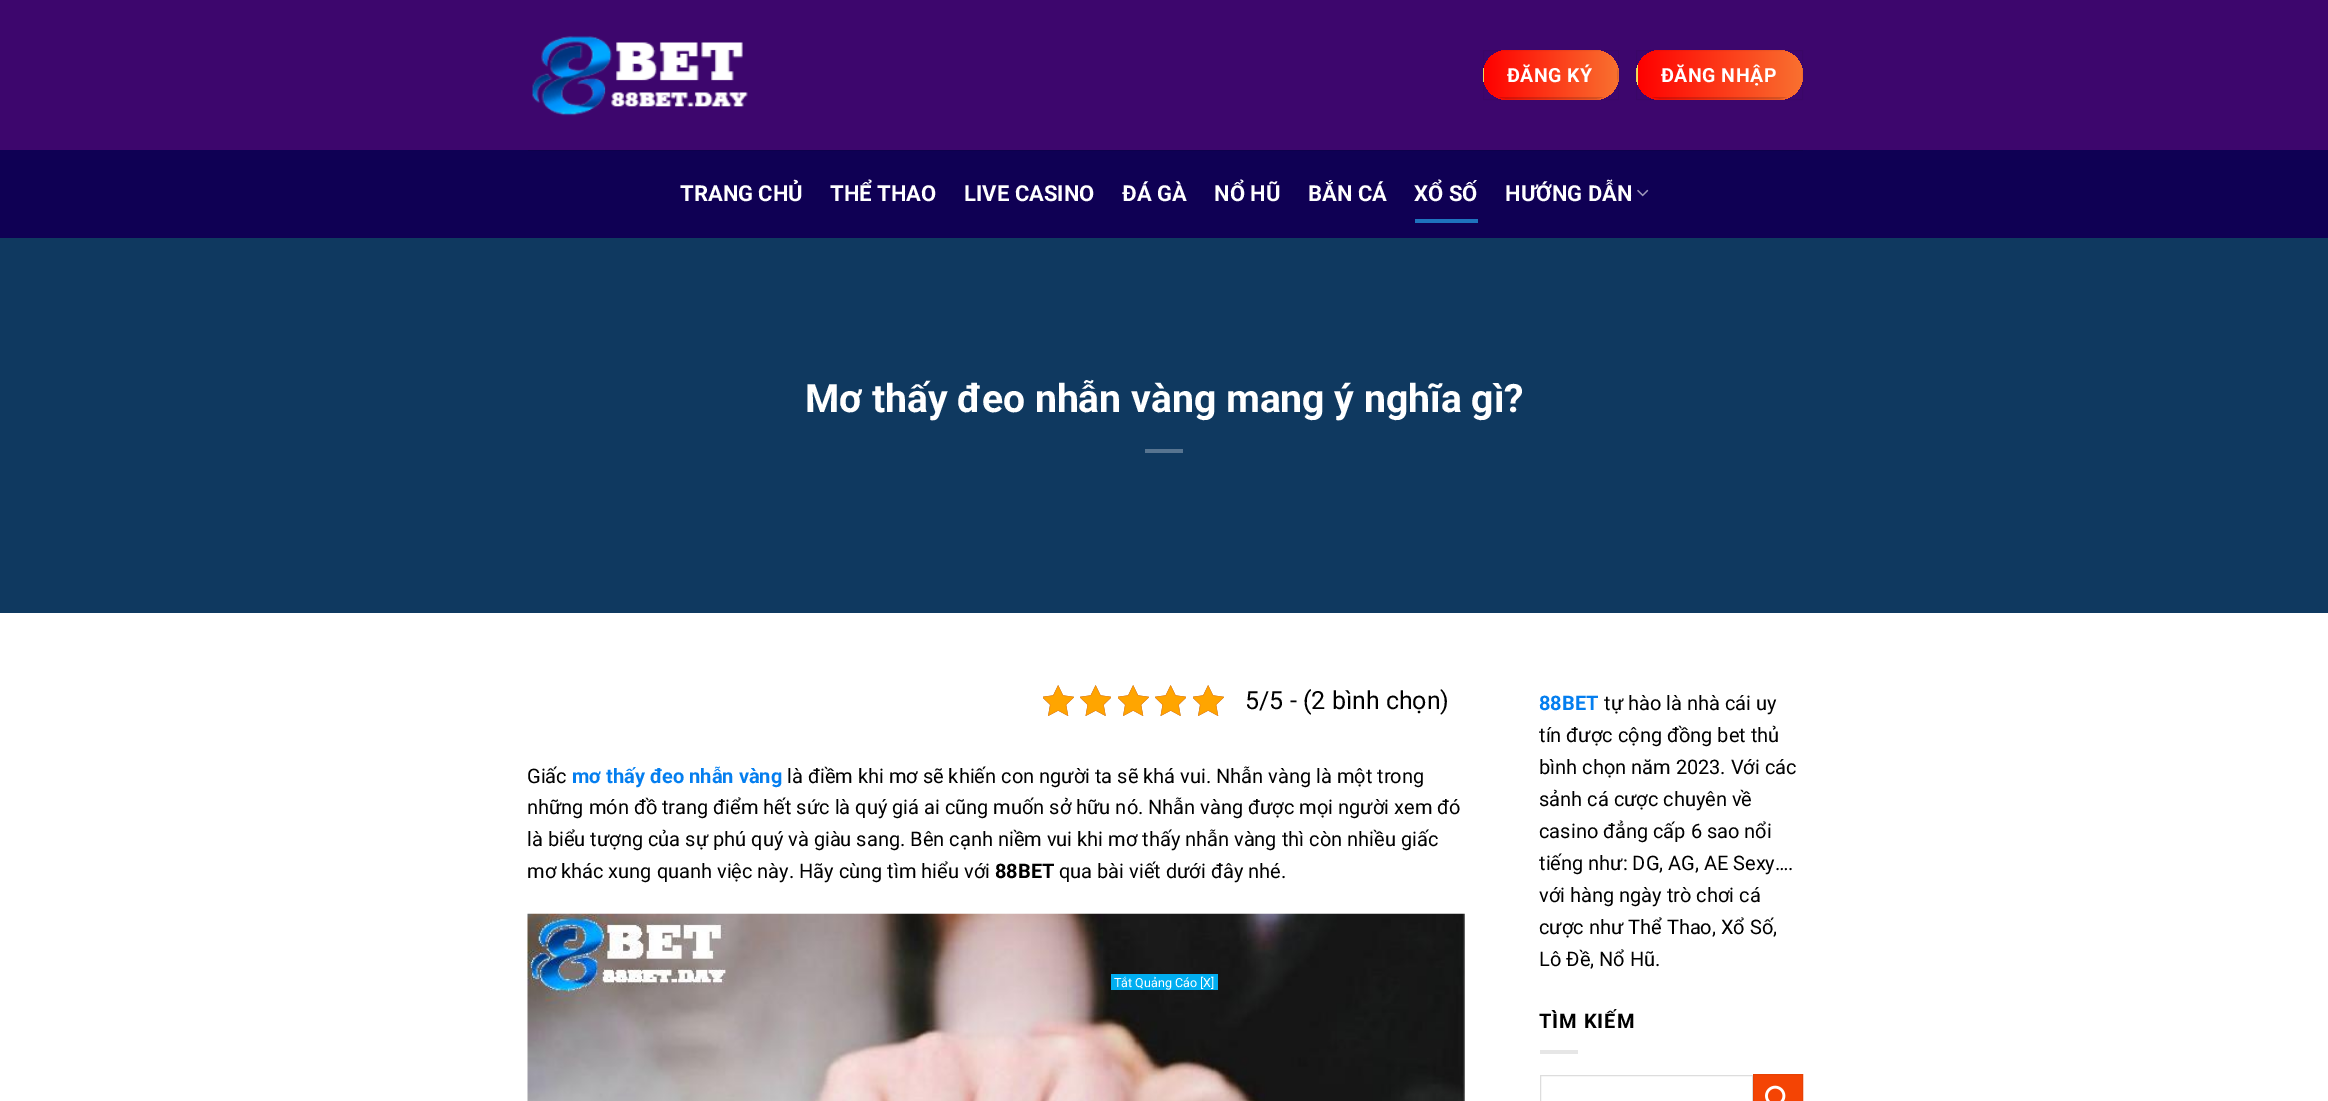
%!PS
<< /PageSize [2328 1101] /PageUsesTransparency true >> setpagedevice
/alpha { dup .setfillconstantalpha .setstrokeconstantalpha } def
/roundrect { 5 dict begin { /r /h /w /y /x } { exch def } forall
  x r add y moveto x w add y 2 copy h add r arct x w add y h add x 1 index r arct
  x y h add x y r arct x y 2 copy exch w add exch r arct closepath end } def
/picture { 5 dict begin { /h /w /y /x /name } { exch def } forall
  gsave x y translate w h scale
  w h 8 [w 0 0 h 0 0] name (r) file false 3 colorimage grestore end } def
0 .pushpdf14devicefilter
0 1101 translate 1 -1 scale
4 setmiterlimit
1 setgray
0 0 2328 1101 rectfill
0.239 0.024 0.427 setrgbcolor
0 0 2328 150 rectfill
(img1.rgb) 532 36 216 80 picture
0.118 0.451 0.745 setrgbcolor
1483 50 136 50 25 roundrect fill
gsave
1483 50 136 50 25 roundrect clip newpath
gsave newpath 1483 68 moveto 1484 68 lineto 1484 82 lineto 1483 82 lineto closepath clip newpath
<< /ShadingType 2 /ColorSpace /DeviceRGB /Coords [1216 75 1484 75] /Extend [true true] /Function << /FunctionType 2 /Domain [0 1] /C0 [1 0 0] /C1 [0.953 0.882 0.376] /N 1 >> >> shfill grestore
gsave newpath 1484 50 moveto 1594 50 lineto 1608 50 1619 61 1619 75 curveto 1619 89 1608 100 1594 100 curveto 1484 100 lineto closepath clip newpath
<< /ShadingType 2 /ColorSpace /DeviceRGB /Coords [1484 75 1751 75] /Extend [true true] /Function << /FunctionType 2 /Domain [0 1] /C0 [1 0 0] /C1 [0.953 0.882 0.376] /N 1 >> >> shfill grestore
grestore
0.05 alpha
0 setgray
1483.5 50.5 135 49 rectstroke
/Roboto-Bold [19.5 0 0 -19.5 0 0] selectfont
1 alpha
1 setgray
1507 82 moveto 0.5 0 (ĐĂNG KÝ) ashow
0.15 alpha
0 setgray
newpath 1617 68 moveto 1617 82 lineto 1618 77 1618 73 1617 68 curveto closepath 1604 97 moveto 1498 97 lineto 1501 98 1505 99 1508 99 curveto 1594 99 lineto 1597 99 1601 98 1604 97 curveto closepath eofill
1 alpha
0.957 0.267 0.016 setrgbcolor
1636 50 167 50 25 roundrect fill
gsave
1636 50 167 50 25 roundrect clip newpath
gsave newpath 1636 65 moveto 1638 65 lineto 1638 85 lineto 1636 85 lineto closepath clip newpath
<< /ShadingType 2 /ColorSpace /DeviceRGB /Coords [1310 75 1638 75] /Extend [true true] /Function << /FunctionType 2 /Domain [0 1] /C0 [1 0 0] /C1 [0.953 0.882 0.376] /N 1 >> >> shfill grestore
gsave newpath 1638 50 moveto 1778 50 lineto 1792 50 1803 61 1803 75 curveto 1803 89 1792 100 1778 100 curveto 1638 100 lineto closepath clip newpath
<< /ShadingType 2 /ColorSpace /DeviceRGB /Coords [1638 75 1965 75] /Extend [true true] /Function << /FunctionType 2 /Domain [0 1] /C0 [1 0 0] /C1 [0.953 0.882 0.376] /N 1 >> >> shfill grestore
grestore
0.05 alpha
0 setgray
1636.5 50.5 166 49 rectstroke
1 alpha
1 setgray
1661 82 moveto 0.5 0 (ĐĂNG NHẬP) ashow
0.15 alpha
0 setgray
newpath 1652 97 moveto 1655 98 1659 99 1662 99 curveto 1777 99 lineto 1780 99 1784 98 1787 97 curveto closepath fill
1 alpha
0.059 0 0.329 setrgbcolor
0 150 2328 88 rectfill
0.055 0 0.298 setrgbcolor
528 150 1275 1 rectfill
/Roboto-Bold [22 0 0 -22 0 0] selectfont
1 setgray
680 201 moveto (TRANG CHỦ) show
830 201 moveto (THỂ THAO) show
964 201 moveto (LIVE CASINO) show
1122 201 moveto (ĐÁ GÀ) show
1214 201 moveto (NỔ HŨ) show
1308 201 moveto (BẮN CÁ) show
1414 201 moveto (XỔ SỐ) show
0.118 0.451 0.745 setrgbcolor
1415 219 63 4 rectfill
1 setgray
1505 201 moveto (HƯỚNG DẪN) show
(img2.rgb) 1637 189 12 8 picture
0.059 0.224 0.376 setrgbcolor
0 238 2328 375 rectfill
/Roboto-Bold [39.1 0 0 -39.1 0 0] selectfont
1 setgray
805 412 moveto (Mơ thấy đeo nhẫn vàng mang ý nghĩa gì?) show
0.341 0.455 0.565 setrgbcolor
1145 449 38 4 rectfill
(img3.rgb) 1043 685 31 31 picture
(img4.rgb) 1080 685 31 31 picture
(img3.rgb) 1118 685 31 31 picture
(img4.rgb) 1155 685 31 31 picture
(img3.rgb) 1193 685 31 31 picture
(img5.rgb) 1043 685 31 31 picture
(img6.rgb) 1080 685 31 31 picture
(img5.rgb) 1118 685 31 31 picture
(img6.rgb) 1155 685 31 31 picture
(img5.rgb) 1193 685 31 31 picture
/Roboto-Regular [25 0 0 -25 0 0] selectfont
0 setgray
1245 709 moveto (5/5 - \(2 bình chọn\)) show
/Roboto-Regular [20 0 0 -20 0 0] selectfont
527 783 moveto (Giấc) show
/Roboto-Bold [20 0 0 -20 0 0] selectfont
0.016 0.494 0.937 setrgbcolor
572 783 moveto (mơ thấy đeo nhẫn vàng) show
/Roboto-Regular [20 0 0 -20 0 0] selectfont
0 setgray
787 783 moveto (là điềm khi mơ sẽ khiến con người ta sẽ khá vui. Nhẫn vàng là một trong) show
527 814 moveto (những món đồ trang điểm hết sức là quý giá ai cũng muốn sở hữu nó. Nhẫn vàng được mọi người xem đó) show
527 846 moveto (là biểu tượng của sự phú quý và giàu sang. Bên cạnh niềm vui khi mơ thấy nhẫn vàng thì còn nhiều giấc) show
527 878 moveto (mơ khác xung quanh việc này. Hãy cùng tìm hiểu với) show
/Roboto-Bold [20 0 0 -20 0 0] selectfont
995 878 moveto (88BET) show
/Roboto-Regular [20 0 0 -20 0 0] selectfont
1059 878 moveto (qua bài viết dưới đây nhé.) show
(img7.rgb) 527 913 938 188 picture
/Roboto-Bold [20 0 0 -20 0 0] selectfont
0.016 0.494 0.937 setrgbcolor
1539 710 moveto (88BET) show
/Roboto-Regular [20 0 0 -20 0 0] selectfont
0 setgray
1604 710 moveto (tự hào là nhà cái uy) show
1539 742 moveto (tín được cộng đồng bet thủ) show
1539 774 moveto (bình chọn năm 2023. Với các) show
1539 806 moveto (sảnh cá cược chuyên về) show
1539 838 moveto (casino đẳng cấp 6 sao nổi) show
1539 870 moveto (tiếng như: DG, AG, AE Sexy….) show
1539 902 moveto (với hàng ngày trò chơi cá) show
1539 934 moveto (cược như Thể Thao, Xổ Số,) show
1539 966 moveto (Lô Đề, Nổ Hũ.) show
/Roboto-Bold [20 0 0 -20 0 0] selectfont
1539 1028 moveto 1 0 (TÌM KIẾM) ashow
0.902 setgray
1540 1050 38 4 rectfill
0.867 setgray
1540.5 1075.5 212 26 rectstroke
0.957 0.267 0.016 setrgbcolor
newpath 1753.5 1074.5 moveto 1802.5 1074.5 lineto 1802.5 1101.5 lineto 1753.5 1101.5 lineto closepath gsave fill grestore
0.91 0.255 0.016 setrgbcolor
stroke
(img8.rgb) 1765 1085 21 16 picture
0.004 0.682 0.941 setrgbcolor
1111 974 107 16 rectfill
/Roboto-Regular [12.5 0 0 -12.5 0 0] selectfont
1 setgray
1114 987 moveto (Tắt Quảng Cáo [X]) show
.poppdf14devicefilter showpage
